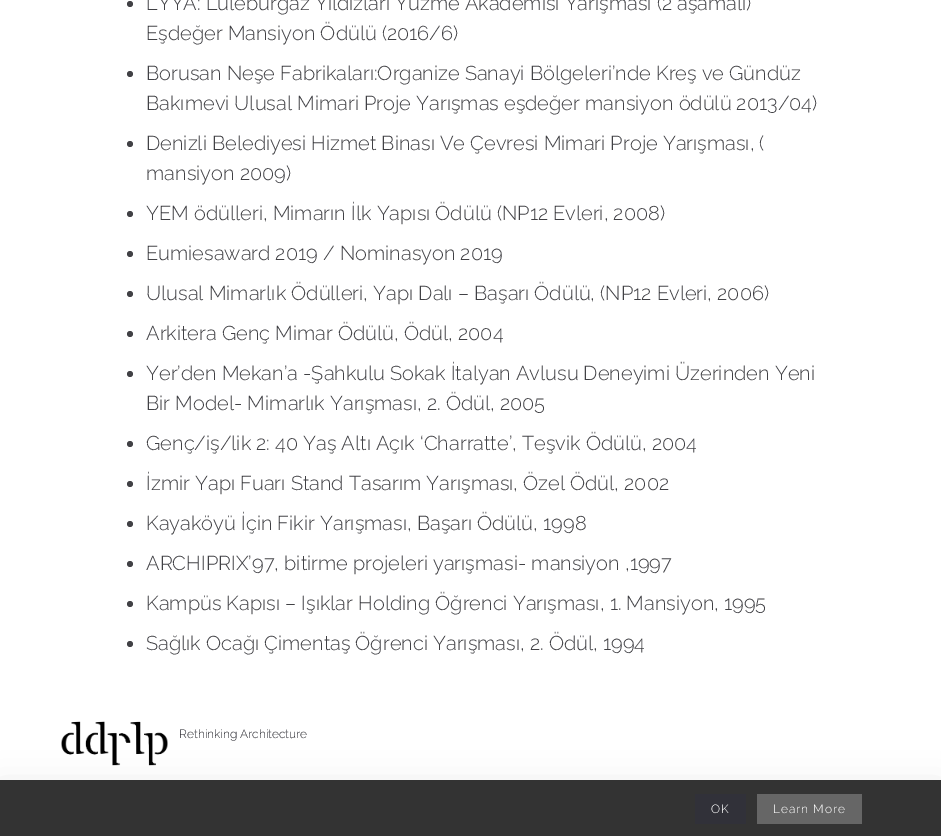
%!PS
<< /PageSize [941 836] /PageUsesTransparency true >> setpagedevice
/alpha { dup .setfillconstantalpha .setstrokeconstantalpha } def
/roundrect { 5 dict begin { /r /h /w /y /x } { exch def } forall
  x r add y moveto x w add y 2 copy h add r arct x w add y h add x 1 index r arct
  x y h add x y r arct x y 2 copy exch w add exch r arct closepath end } def
/shadow { 12 dict begin { /a /b /q /h /w /y /x } { exch def } forall gsave /was 0 def
  9 -2 -9 { dup b mul 4 div /e exch def 1 sub .425 mul 2.718 exch exp 1 add a .99 .min exch div /now exch def
    1 1 now sub 1 was sub div sub alpha /was now def
    w h .min e 2 mul add 0 gt { x e sub y e sub w e 2 mul add h e 2 mul add
      q e add b .6 mul add w h .min 2 div e add .min 0 .max roundrect fill } if } for grestore end } def
/picture { 5 dict begin { /h /w /y /x /name } { exch def } forall
  gsave x y translate w h scale
  w h 8 [w 0 0 h 0 0] name (r) file false 3 colorimage grestore end } def
0 .pushpdf14devicefilter
0 836 translate 1 -1 scale
4 setmiterlimit
1 setgray
0 0 941 836 rectfill
0.255 0.255 0.271 setrgbcolor
newpath 130 4 3 0 360 arc closepath fill
/Raleway-Light [20 0 0 -20 0 0] selectfont
146 10 moveto (LYYA: Lüleburgaz Yıldızları Yüzme Akademisi Yarışması \(2 aşamalı\)) show
146 40 moveto (Eşdeğer Mansiyon Ödülü \(2016/6\)) show
newpath 130 74 3 0 360 arc closepath fill
146 80 moveto (Borusan Neşe Fabrikaları:Organize Sanayi Bölgeleri’nde Kreş ve Gündüz) show
146 110 moveto (Bakımevi Ulusal Mimari Proje Yarışmas eşdeğer mansiyon ödülü 2013/04\)) show
newpath 130 144 3 0 360 arc closepath fill
146 150 moveto (Denizli Belediyesi Hizmet Binası Ve Çevresi Mimari Proje Yarışması, \() show
146 180 moveto (mansiyon 2009\)) show
newpath 130 214 3 0 360 arc closepath fill
146 220 moveto (YEM ödülleri, Mimarın İlk Yapısı Ödülü \(NP12 Evleri, 2008\)) show
newpath 130 254 3 0 360 arc closepath fill
146 260 moveto (Eumiesaward 2019 / Nominasyon 2019) show
newpath 130 294 3 0 360 arc closepath fill
146 300 moveto (Ulusal Mimarlık Ödülleri, Yapı Dalı – Başarı Ödülü, \(NP12 Evleri, 2006\)) show
newpath 130 334 3 0 360 arc closepath fill
146 340 moveto (Arkitera Genç Mimar Ödülü, Ödül, 2004) show
newpath 130 374 3 0 360 arc closepath fill
146 380 moveto (Yer’den Mekan’a -Şahkulu Sokak İtalyan Avlusu Deneyimi Üzerinden Yeni) show
146 410 moveto (Bir Model- Mimarlık Yarışması, 2. Ödül, 2005) show
newpath 130 444 3 0 360 arc closepath fill
146 450 moveto (Genç/iş/lik 2: 40 Yaş Altı Açık ‘Charratte’, Teşvik Ödülü, 2004) show
newpath 130 484 3 0 360 arc closepath fill
146 490 moveto (İzmir Yapı Fuarı Stand Tasarım Yarışması, Özel Ödül, 2002) show
newpath 130 524 3 0 360 arc closepath fill
146 530 moveto (Kayaköyü İçin Fikir Yarışması, Başarı Ödülü, 1998) show
newpath 130 564 3 0 360 arc closepath fill
146 570 moveto (ARCHIPRIX’97, bitirme projeleri yarışmasi- mansiyon ,1997) show
newpath 130 604 3 0 360 arc closepath fill
146 610 moveto (Kampüs Kapısı – Işıklar Holding Öğrenci Yarışması, 1. Mansiyon, 1995) show
newpath 130 644 3 0 360 arc closepath fill
146 650 moveto (Sağlık Ocağı Çimentaş Öğrenci Yarışması, 2. Ödül, 1994) show
(img1.rgb) 61 721 107 45 picture
/Raleway-Light [12 0 0 -12 0 0] selectfont
0.157 0.157 0.18 setrgbcolor
179 738 moveto (Rethinking Architecture) show
0 setgray
0 787 941 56 0 16.5 0.1 shadow
0.2 setgray
0 780 941 56 rectfill
0.192 0.192 0.224 setrgbcolor
695 794 51 30 rectfill
1 setgray
711 813 moveto 1 0 (OK) ashow
0.4 setgray
757 794 105 30 rectfill
1 setgray
773 813 moveto 1 0 (Learn More) ashow
.poppdf14devicefilter showpage
